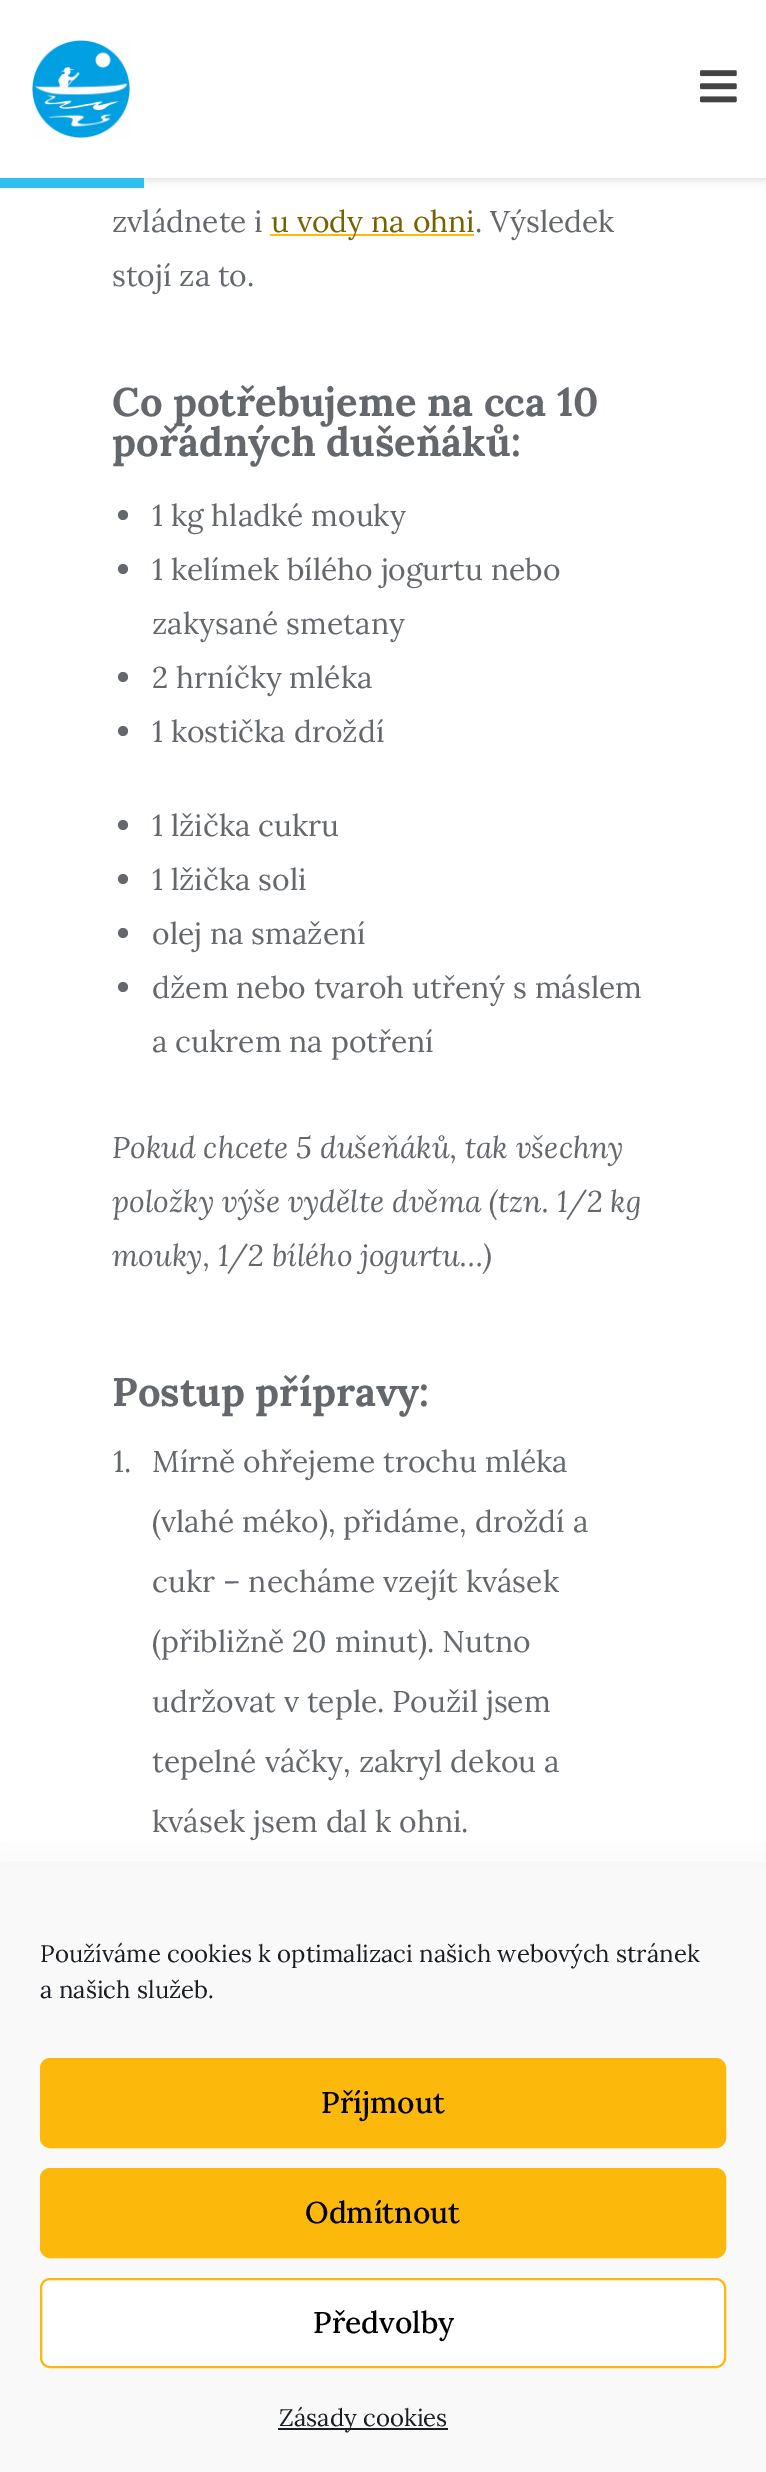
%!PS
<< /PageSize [766 2472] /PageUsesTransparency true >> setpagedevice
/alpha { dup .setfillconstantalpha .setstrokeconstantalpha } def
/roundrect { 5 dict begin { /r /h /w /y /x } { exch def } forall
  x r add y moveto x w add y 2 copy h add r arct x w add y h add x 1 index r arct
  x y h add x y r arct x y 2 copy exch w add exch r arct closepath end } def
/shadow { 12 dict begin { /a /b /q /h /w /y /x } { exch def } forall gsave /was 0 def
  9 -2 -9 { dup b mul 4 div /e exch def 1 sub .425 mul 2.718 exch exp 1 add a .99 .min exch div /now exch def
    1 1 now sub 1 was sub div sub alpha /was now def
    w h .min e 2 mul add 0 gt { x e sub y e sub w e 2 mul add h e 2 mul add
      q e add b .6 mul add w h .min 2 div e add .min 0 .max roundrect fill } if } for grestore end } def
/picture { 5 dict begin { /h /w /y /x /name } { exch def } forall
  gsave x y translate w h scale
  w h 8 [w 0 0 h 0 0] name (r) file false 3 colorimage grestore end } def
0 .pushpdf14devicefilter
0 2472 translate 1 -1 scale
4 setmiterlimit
1 setgray
0 0 766 2472 rectfill
0.8 setgray
0 0 766 178 0 5 1 shadow
1 setgray
0 0 766 178 rectfill
(img1.rgb) 32 40 99 99 picture
(img2.rgb) 700 70 37 33 picture
0.184 0.745 0.937 setrgbcolor
0 178 144 10 rectfill
/Lora-Regular [30 0 0 -30 0 0] selectfont
0.392 0.408 0.427 setrgbcolor
112 232 moveto (zvládnete i) show
0.988 0.722 0.043 setrgbcolor
270 234 204 2 rectfill
0.459 0.384 0 setrgbcolor
271 232 moveto (u vody na ohni) show
0.392 0.408 0.427 setrgbcolor
475 232 moveto (. Výsledek) show
112 286 moveto (stojí za to.) show
/Lora-Bold [40 0 0 -40 0 0] selectfont
112 416 moveto (Co potřebujeme na cca 10) show
112 456 moveto (pořádných dušeňáků:) show
newpath 123 515 5 0 360 arc closepath fill
/Lora-Regular [30 0 0 -30 0 0] selectfont
152 526 moveto (1 kg hladké mouky) show
newpath 123 569 5 0 360 arc closepath fill
152 580 moveto (1 kelímek bílého jogurtu nebo) show
152 634 moveto (zakysané smetany) show
newpath 123 677 5 0 360 arc closepath fill
152 688 moveto (2 hrníčky mléka) show
newpath 123 731 5 0 360 arc closepath fill
152 742 moveto (1 kostička droždí) show
newpath 123 825 5 0 360 arc closepath fill
152 836 moveto (1 lžička cukru) show
newpath 123 879 5 0 360 arc closepath fill
152 890 moveto (1 lžička soli) show
newpath 123 933 5 0 360 arc closepath fill
152 944 moveto (olej na smažení) show
newpath 123 987 5 0 360 arc closepath fill
152 998 moveto (džem nebo tvaroh utřený s máslem) show
152 1052 moveto (a cukrem na potření) show
/Lora-Italic [30 0 0 -30 0 0] selectfont
112 1158 moveto (Pokud chcete 5 dušeňáků, tak všechny) show
112 1212 moveto (položky výše vydělte dvěma \(tzn. 1/2 kg) show
112 1266 moveto (mouky, 1/2 bílého jogurtu…\)) show
/Lora-Bold [40 0 0 -40 0 0] selectfont
112 1406 moveto (Postup přípravy:) show
/Lora-Regular [30 0 0 -30 0 0] selectfont
113 1472 moveto (1.) show
152 1472 moveto (Mírně ohřejeme trochu mléka) show
152 1532 moveto (\(vlahé méko\), přidáme, droždí a) show
152 1592 moveto (cukr – necháme vzejít kvásek) show
152 1652 moveto (\(přibližně 20 minut\). Nutno) show
152 1712 moveto (udržovat v teple. Použil jsem) show
152 1772 moveto (tepelné váčky, zakryl dekou a) show
152 1832 moveto (kvásek jsem dal k ohni.) show
0 setgray
0 1886 766 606 0 20 0.19 shadow
0.976 setgray
0 1868 766 604 rectfill
/Lora-Regular [24 0 0 -24 0 0] selectfont
0.098 0.118 0.137 setrgbcolor
40 1962 moveto (Používáme cookies k optimalizaci našich webových stránek) show
40 1998 moveto (a našich služeb.) show
0.988 0.722 0.043 setrgbcolor
41 2059 684 88 9 roundrect gsave fill grestore
2 setlinewidth
stroke
/Lora-Medium [30 0 0 -30 0 0] selectfont
0 setgray
321 2113 moveto (Příjmout) show
0.988 0.722 0.043 setrgbcolor
41 2169 684 88 9 roundrect gsave fill grestore
stroke
0 setgray
305 2223 moveto (Odmítnout) show
1 setgray
41 2279 684 88 9 roundrect gsave fill grestore
0.988 0.722 0.043 setrgbcolor
stroke
0 setgray
313 2333 moveto (Předvolby) show
0.098 0.118 0.137 setrgbcolor
278 2428 170 2 rectfill
/Lora-Regular [24 0 0 -24 0 0] selectfont
279 2426 moveto (Zásady cookies) show
.poppdf14devicefilter showpage
